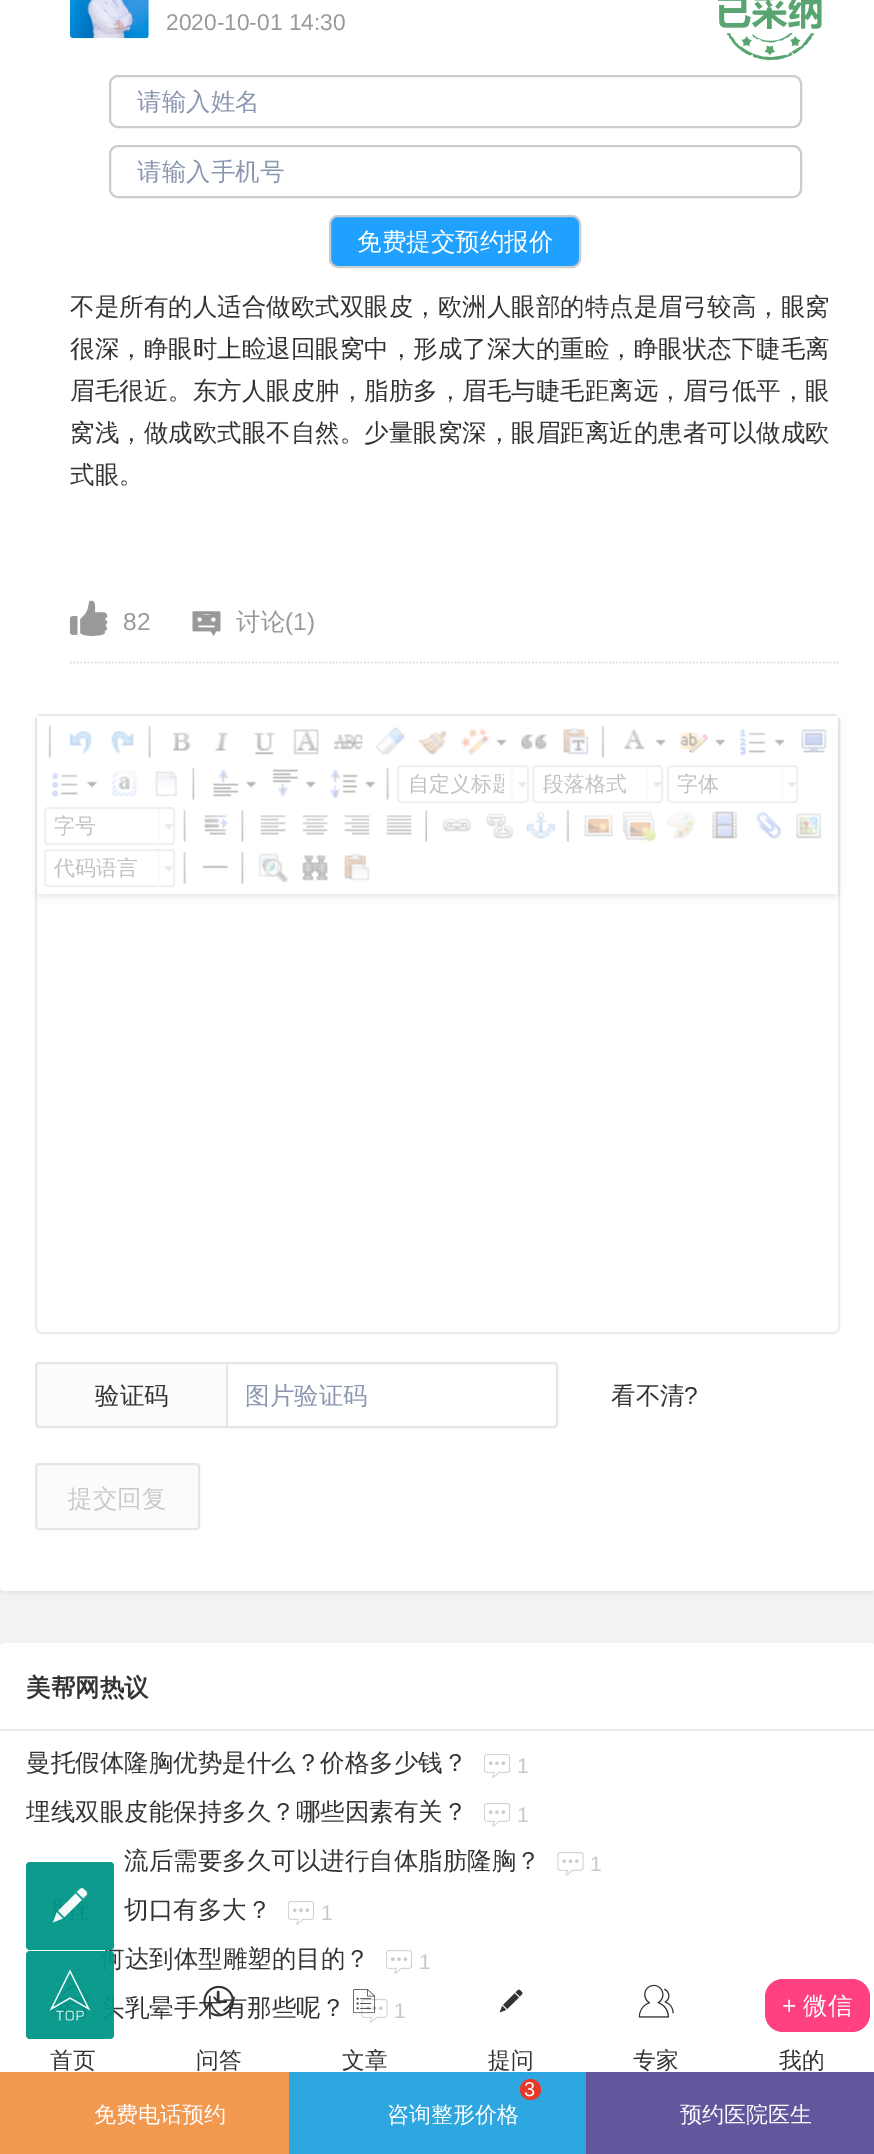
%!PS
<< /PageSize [874 2154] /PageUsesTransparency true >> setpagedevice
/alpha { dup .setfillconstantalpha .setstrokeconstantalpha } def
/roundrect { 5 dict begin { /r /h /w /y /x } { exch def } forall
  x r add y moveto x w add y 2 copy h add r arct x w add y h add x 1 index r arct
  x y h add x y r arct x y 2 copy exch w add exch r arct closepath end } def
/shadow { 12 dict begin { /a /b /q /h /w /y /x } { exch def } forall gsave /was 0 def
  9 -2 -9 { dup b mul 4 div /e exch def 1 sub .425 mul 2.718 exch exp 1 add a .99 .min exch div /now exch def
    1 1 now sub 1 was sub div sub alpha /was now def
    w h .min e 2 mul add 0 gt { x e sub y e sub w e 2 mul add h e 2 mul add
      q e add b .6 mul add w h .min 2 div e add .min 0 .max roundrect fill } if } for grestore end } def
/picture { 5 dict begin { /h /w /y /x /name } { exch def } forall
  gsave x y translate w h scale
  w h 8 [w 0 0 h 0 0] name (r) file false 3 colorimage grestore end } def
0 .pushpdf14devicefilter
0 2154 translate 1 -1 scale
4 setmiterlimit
0.949 setgray
0 0 874 2154 rectfill
0 setgray
0 -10 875 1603 4 2 0.05 shadow
1 setgray
0 -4 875 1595 4 roundrect fill
0.875 setgray
1.8 setlinewidth
[1.75 1.75] 0 setdash
newpath 70 662.5 moveto 840 662.5 lineto stroke
(img1.rgb) 70 0 79 39 picture
/LiberationSans-Regular [22.75 0 0 -22.75 0 0] selectfont
0.6 setgray
166 30 moveto (2020-10-01 14:30) show
(img2.rgb) 718 0 104 61 picture
0.8 setgray
2 setlinewidth
[] 0 setdash
110 76 691 51 8 roundrect stroke
/WenQuanYiZenHei-Medium [24.5 0 0 -24.5 0 0] selectfont
0.545 0.592 0.694 setrgbcolor
137 110 moveto (请输入姓名) show
0.8 setgray
110 146 691 51 8 roundrect stroke
0.545 0.592 0.694 setrgbcolor
137 180 moveto (请输入手机号) show
0.125 0.627 1 setrgbcolor
330 216 250 51 8 roundrect gsave fill grestore
0.8 setgray
stroke
1 setgray
357 250 moveto (免费提交预约报价) show
0.2 setgray
70 315 moveto (不是所有的人适合做欧式双眼皮，欧洲人眼部的特点是眉弓较高，眼窝) show
70 357 moveto (很深，睁眼时上睑退回眼窝中，形成了深大的重睑，睁眼状态下睫毛离) show
70 399 moveto (眉毛很近。东方人眼皮肿，脂肪多，眉毛与睫毛距离远，眉弓低平，眼) show
70 441 moveto (窝浅，做成欧式眼不自然。少量眼窝深，眼眉距离近的患者可以做成欧) show
70 483 moveto (式眼。) show
(img3.rgb) 70 600 38 37 picture
/LiberationSans-Regular [24.5 0 0 -24.5 0 0] selectfont
0.6 setgray
123 630 moveto (82) show
(img4.rgb) 192 611 29 25 picture
/WenQuanYiZenHei-Medium [24.5 0 0 -24.5 0 0] selectfont
236 630 moveto (讨论) show
/LiberationSans-Regular [24.5 0 0 -24.5 0 0] selectfont
285 630 moveto (\(1\)) show
0.925 setgray
36 715 803 618 6 roundrect stroke
0.8 setgray
37 718 801 178 4 3.5 0.6 shadow
1 setgray
37 716 801 178 rectfill
(img5.rgb) 48 725 3 33 picture
(img6.rgb) 69 731 23 24 picture
(img7.rgb) 111 731 23 24 picture
(img8.rgb) 148 725 3 33 picture
(img9.rgb) 173 732 18 19 picture
(img10.rgb) 215 732 13 19 picture
(img11.rgb) 253 732 22 23 picture
(img12.rgb) 293 729 26 26 picture
(img13.rgb) 334 734 29 16 picture
(img14.rgb) 376 727 29 28 picture
(img15.rgb) 418 731 29 24 picture
(img16.rgb) 460 727 29 28 picture
(img17.rgb) 496 739 11 7 picture
(img18.rgb) 521 734 27 16 picture
(img19.rgb) 563 727 26 28 picture
(img5.rgb) 601 725 3 33 picture
(img20.rgb) 623 729 22 21 picture
(img21.rgb) 656 739 10 7 picture
(img22.rgb) 680 732 29 21 picture
(img23.rgb) 715 739 10 7 picture
(img24.rgb) 740 729 26 27 picture
(img25.rgb) 775 739 10 7 picture
(img26.rgb) 801 729 26 24 picture
(img27.rgb) 52 773 26 24 picture
(img28.rgb) 87 781 10 7 picture
(img29.rgb) 111 771 26 26 picture
(img30.rgb) 155 771 22 26 picture
(img31.rgb) 192 767 3 33 picture
(img32.rgb) 213 769 26 28 picture
(img33.rgb) 246 781 10 7 picture
(img34.rgb) 272 769 26 28 picture
(img25.rgb) 306 781 10 7 picture
(img35.rgb) 330 769 28 30 picture
(img23.rgb) 365 781 10 7 picture
(img8.rgb) 386 767 3 33 picture
0.941 setgray
398 766 130 36 3 roundrect stroke
gsave
399 767 105 35 rectclip
/WenQuanYiZenHei-Medium [21 0 0 -21 0 0] selectfont
0.761 setgray
408 791 moveto (自定义标题) show
grestore
(img36.rgb) 518 782 9 6 picture
0.98 setgray
511 767 2 35 rectfill
0.941 setgray
533 766 129 36 3 roundrect stroke
/WenQuanYiZenHei-Medium [21 0 0 -21 0 0] selectfont
0.761 setgray
543 791 moveto (段落格式) show
(img37.rgb) 653 782 9 6 picture
0.98 setgray
646 767 2 35 rectfill
0.941 setgray
668 766 129 36 3 roundrect stroke
0.761 setgray
677 791 moveto (字体) show
(img38.rgb) 787 782 9 6 picture
0.98 setgray
781 767 2 35 rectfill
0.941 setgray
45 808 129 36 3 roundrect stroke
0.761 setgray
54 833 moveto (字号) show
(img38.rgb) 164 824 9 6 picture
0.98 setgray
158 809 2 35 rectfill
(img8.rgb) 183 809 3 33 picture
(img39.rgb) 204 815 24 20 picture
(img40.rgb) 241 809 3 33 picture
(img41.rgb) 260 815 26 20 picture
(img42.rgb) 302 815 26 20 picture
(img43.rgb) 344 815 26 20 picture
(img44.rgb) 386 815 26 20 picture
(img45.rgb) 425 809 2 33 picture
(img46.rgb) 442 818 29 14 picture
(img47.rgb) 486 813 27 26 picture
(img48.rgb) 526 811 30 28 picture
(img5.rgb) 566 809 3 33 picture
(img49.rgb) 584 815 29 22 picture
(img50.rgb) 622 811 35 31 picture
(img51.rgb) 666 811 29 28 picture
(img52.rgb) 712 811 26 28 picture
(img53.rgb) 755 811 26 28 picture
(img54.rgb) 796 813 26 26 picture
0.941 setgray
45 850 129 36 3 roundrect stroke
0.761 setgray
54 875 moveto (代码语言) show
(img38.rgb) 164 866 9 6 picture
0.98 setgray
158 851 2 35 rectfill
(img8.rgb) 183 851 3 33 picture
(img55.rgb) 202 865 26 4 picture
(img40.rgb) 241 851 3 33 picture
(img56.rgb) 258 853 30 30 picture
(img57.rgb) 302 855 26 26 picture
(img58.rgb) 344 853 26 28 picture
0.984 setgray
newpath 39 1363 moveto 227 1363 lineto 227 1427 lineto 39 1427 lineto 37.5 1427 36 1425.5 36 1424 curveto 36 1366 lineto 36 1364.5 37.5 1363 39 1363 curveto closepath gsave fill grestore
0.902 setgray
stroke
/WenQuanYiZenHei-Medium [24.5 0 0 -24.5 0 0] selectfont
0.2 setgray
95 1404 moveto (验证码) show
1 setgray
newpath 227 1363 moveto 554 1363 lineto 555.5 1363 557 1364.5 557 1366 curveto 557 1424 lineto 557 1425.5 555.5 1427 554 1427 curveto 227 1427 lineto closepath gsave fill grestore
0.902 setgray
stroke
0.545 0.592 0.694 setrgbcolor
245 1404 moveto (图片验证码) show
0.2 setgray
611 1404 moveto (看不清) show
/LiberationSans-Regular [24.5 0 0 -24.5 0 0] selectfont
684 1404 moveto (?) show
0.984 setgray
36 1464 163 65 3 roundrect gsave fill grestore
0.902 setgray
stroke
/WenQuanYiZenHei-Medium [24.5 0 0 -24.5 0 0] selectfont
0.788 setgray
68 1507 moveto (提交回复) show
1 setgray
0 1643 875 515 4 roundrect fill
0.914 setgray
0 1729 874 2 rectfill
/WenQuanYiZenHei-Bold [24.5 0 0 -24.5 0 0] selectfont
0.2 setgray
26 1696 moveto (美帮网热议) show
/WenQuanYiZenHei-Medium [24.5 0 0 -24.5 0 0] selectfont
26 1771 moveto (曼托假体隆胸优势是什么？价格多少钱？) show
(img59.rgb) 484 1754 26 24 picture
/LiberationSans-Regular [21 0 0 -21 0 0] selectfont
0.788 setgray
517 1773 moveto (1) show
/WenQuanYiZenHei-Medium [24.5 0 0 -24.5 0 0] selectfont
0.2 setgray
26 1820 moveto (埋线双眼皮能保持多久？哪些因素有关？) show
(img59.rgb) 484 1803 26 24 picture
/LiberationSans-Regular [21 0 0 -21 0 0] selectfont
0.788 setgray
517 1822 moveto (1) show
/WenQuanYiZenHei-Medium [24.5 0 0 -24.5 0 0] selectfont
0.2 setgray
124 1869 moveto (流后需要多久可以进行自体脂肪隆胸？) show
(img60.rgb) 557 1852 27 24 picture
/LiberationSans-Regular [21 0 0 -21 0 0] selectfont
0.788 setgray
590 1871 moveto (1) show
/WenQuanYiZenHei-Medium [24.5 0 0 -24.5 0 0] selectfont
0.2 setgray
124 1918 moveto (切口有多大？) show
(img59.rgb) 288 1901 26 24 picture
/LiberationSans-Regular [21 0 0 -21 0 0] selectfont
0.788 setgray
321 1920 moveto (1) show
/WenQuanYiZenHei-Medium [24.5 0 0 -24.5 0 0] selectfont
0.2 setgray
100 1967 moveto (何达到体型雕塑的目的？) show
(img59.rgb) 386 1950 26 24 picture
/LiberationSans-Regular [21 0 0 -21 0 0] selectfont
0.788 setgray
419 1969 moveto (1) show
/WenQuanYiZenHei-Medium [24.5 0 0 -24.5 0 0] selectfont
0.2 setgray
100 2016 moveto (头乳晕手术有那些呢？) show
(img60.rgb) 361 1999 27 24 picture
/LiberationSans-Regular [21 0 0 -21 0 0] selectfont
0.788 setgray
394 2018 moveto (1) show
1 0.255 0.506 setrgbcolor
765 1979 105 53 18 roundrect fill
/LiberationSans-Regular [24.5 0 0 -24.5 0 0] selectfont
1 setgray
782 2014 moveto (+) show
/WenQuanYiZenHei-Medium [24.5 0 0 -24.5 0 0] selectfont
803 2014 moveto (微信) show
(img61.rgb) 56 1984 35 32 picture
/WenQuanYiZenHei-Medium [22.75 0 0 -22.75 0 0] selectfont
0.2 setgray
50 2068 moveto (首页) show
(img62.rgb) 203 1985 31 32 picture
196 2068 moveto (问答) show
(img63.rgb) 353 1989 22 25 picture
342 2068 moveto (文章) show
(img64.rgb) 499 1989 24 24 picture
488 2068 moveto (提问) show
(img65.rgb) 638 1984 36 34 picture
633 2068 moveto (专家) show
779 2068 moveto (我的) show
0.949 0.6 0.314 setrgbcolor
0 2072 289 82 rectfill
/WenQuanYiZenHei-Medium [22 0 0 -22 0 0] selectfont
1 setgray
94 2122 moveto (免费电话预约) show
0.18 0.655 0.878 setrgbcolor
289 2072 297 82 rectfill
0.906 0.22 0.157 setrgbcolor
newpath 530.5 2089.5 10.5 0 360 arc closepath fill
/LiberationSans-Regular [20 0 0 -20 0 0] selectfont
1 setgray
524 2096 moveto (3) show
/WenQuanYiZenHei-Medium [22 0 0 -22 0 0] selectfont
387 2122 moveto (咨询整形价格) show
0.392 0.337 0.616 setrgbcolor
586 2072 288 82 rectfill
1 setgray
680 2122 moveto (预约医院医生) show
0.95 alpha
0 0.588 0.533 setrgbcolor
26 1862 88 88 4 roundrect fill
1 alpha
(img66.rgb) 52 1888 36 35 picture
0.95 alpha
26 1951 88 88 4 roundrect fill
1 alpha
(img67.rgb) 49 1969 42 52 picture
.poppdf14devicefilter showpage
